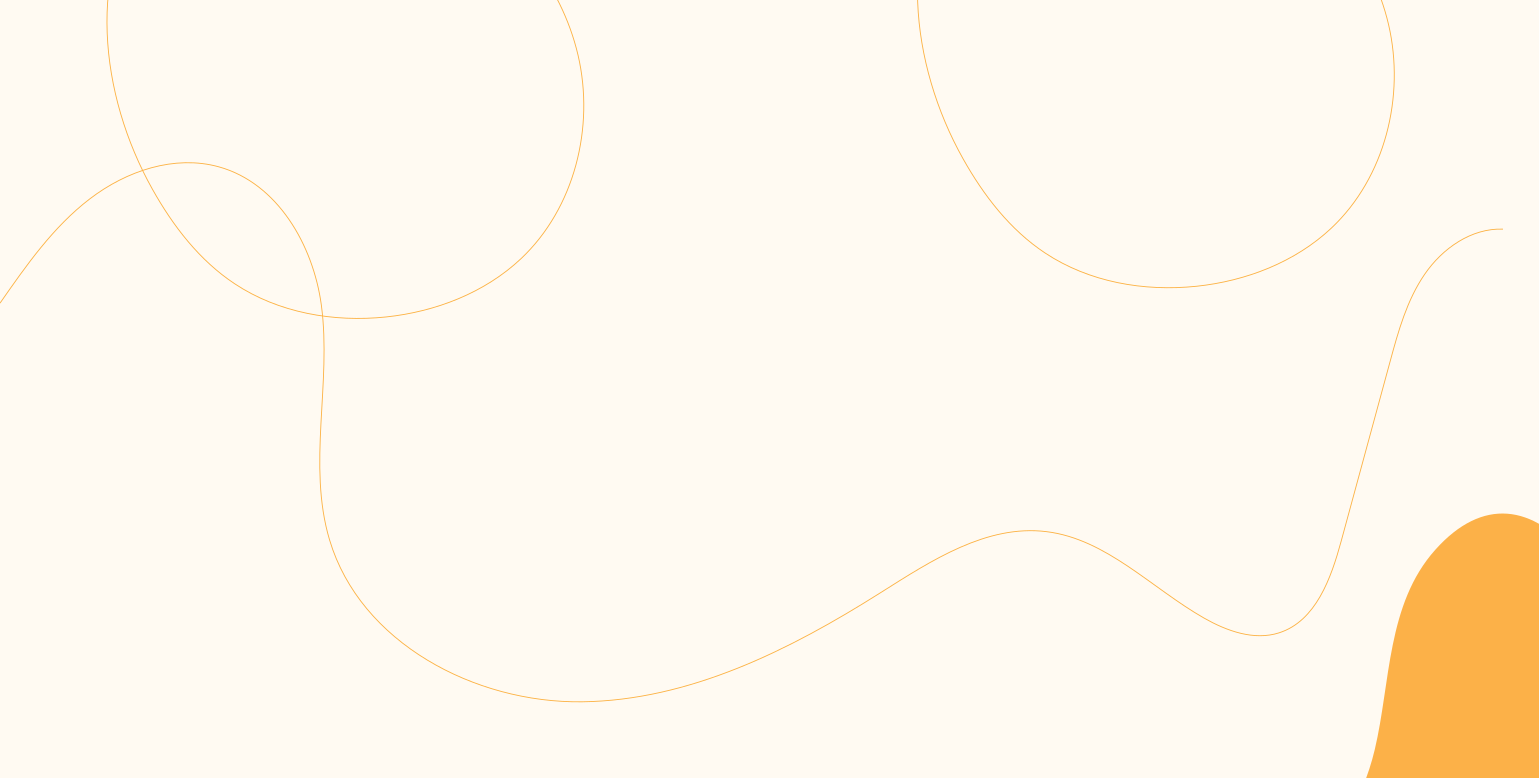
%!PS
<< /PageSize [1539 778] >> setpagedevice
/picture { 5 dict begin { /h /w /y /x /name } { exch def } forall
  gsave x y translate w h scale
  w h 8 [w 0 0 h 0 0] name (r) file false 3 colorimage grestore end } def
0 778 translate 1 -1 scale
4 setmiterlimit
1 setgray
0 0 1539 778 rectfill
(img1.rgb) 0 0 1539 778 picture
showpage
